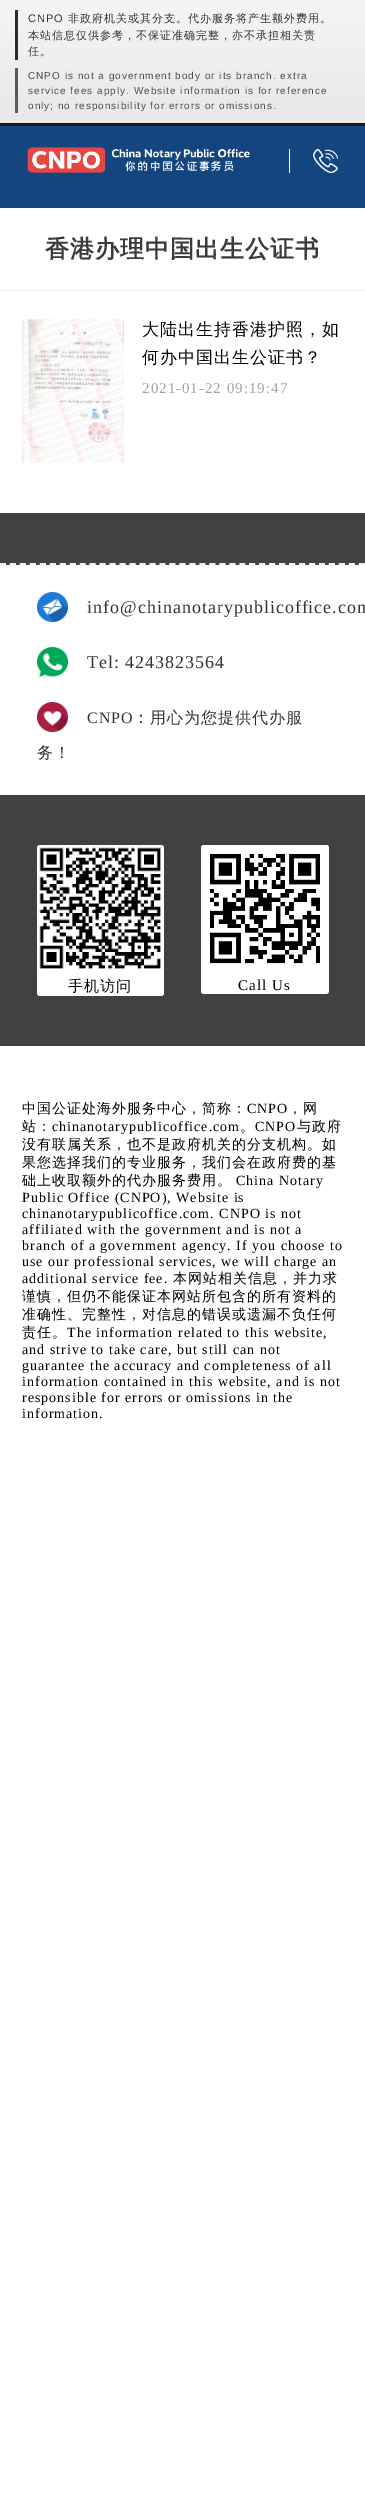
%!PS
<< /PageSize [365 2520] >> setpagedevice
/roundrect { 5 dict begin { /r /h /w /y /x } { exch def } forall
  x r add y moveto x w add y 2 copy h add r arct x w add y h add x 1 index r arct
  x y h add x y r arct x y 2 copy exch w add exch r arct closepath end } def
/picture { 5 dict begin { /h /w /y /x /name } { exch def } forall
  gsave x y translate w h scale
  w h 8 [w 0 0 h 0 0] name (r) file false 3 colorimage grestore end } def
0 2520 translate 1 -1 scale
4 setmiterlimit
1 setgray
0 0 365 2520 rectfill
gsave newpath 0 0 moveto 365 0 lineto 365 123 lineto 0 123 lineto closepath clip newpath
<< /ShadingType 2 /ColorSpace /DeviceRGB /Coords [183 0 183 123] /Extend [true true] /Function << /FunctionType 2 /Domain [0 1] /C0 [0.961 0.961 0.961] /C1 [0.91 0.91 0.91] /N 1 >> >> shfill grestore
0.102 setgray
0 123 365 3 rectfill
0.173 setgray
15 10 3 50 rectfill
/LiberationSans-Regular [11 0 0 -11 0 0] selectfont
0.2 setgray
28 22 moveto 1 0 (CNPO) ashow
/WenQuanYiZenHei-Medium [11 0 0 -11 0 0] selectfont
68 22 moveto 1 0 (非政府机关或其分支。代办服务将产生额外费用。) ashow
28 39 moveto 1 0 (本站信息仅供参考，不保证准确完整，亦不承担相关责) ashow
28 55 moveto 1 0 (任。) ashow
0.353 setgray
15 68 3 45 rectfill
/LiberationSans-Regular [10 0 0 -10 0 0] selectfont
0.29 setgray
28 79 moveto 1 0 (CNPO is not a government body or its branch. extra) ashow
28 94 moveto 1 0 (service fees apply. Website information is for reference) ashow
28 109 moveto 1 0 (only; no responsibility for errors or omissions.) ashow
0.082 0.271 0.494 setrgbcolor
0 126 365 82 rectfill
(img1.rgb) 27 147 223 26 picture
1 setgray
289 149 1 24 rectfill
(img2.rgb) 313 149 25 24 picture
/WenQuanYiZenHei-Bold [24 0 0 -24 0 0] selectfont
0.227 setgray
45 257 moveto 1 0 (香港办理中国出生公证书) ashow
0.945 setgray
0 290 365 1 rectfill
(img3.rgb) 22 319 102 144 picture
/WenQuanYiZenHei-Medium [17 0 0 -17 0 0] selectfont
0 setgray
142 335 moveto 1 0 (大陆出生持香港护照，如) ashow
142 363 moveto 1 0 (何办中国出生公证书？) ashow
/LiberationSerif-Regular [15 0 0 -15 0 0] selectfont
0.635 setgray
142 393 moveto 1 0 (2021-01-22 09:19:47) ashow
0.255 setgray
0 513 365 533 rectfill
0.937 setgray
2 setlinewidth
[6 3.97] 0 setdash
newpath 0 564 moveto 365 564 lineto stroke
1 setgray
0 565 365 230 rectfill
(img4.rgb) 37 592 31 30 picture
/LiberationSerif-Regular [18 0 0 -18 0 0] selectfont
0.2 setgray
87 613 moveto 1 0 (info@chinanotarypublicoffice.com) ashow
(img5.rgb) 37 647 31 30 picture
87 668 moveto 1 0 (Tel: 4243823564) ashow
(img6.rgb) 37 702 31 30 picture
/LiberationSerif-Regular [16 0 0 -16 0 0] selectfont
87 723 moveto 1 0 (CNPO) ashow
/WenQuanYiZenHei-Medium [16 0 0 -16 0 0] selectfont
133 723 moveto 1 0 (：用心为您提供代办服) ashow
37 758 moveto 1 0 (务！) ashow
1 setgray
37 845 127 151 3 roundrect fill
(img7.rgb) 37 845 127 124 picture
/WenQuanYiZenHei-Medium [15 0 0 -15 0 0] selectfont
0 setgray
68 991 moveto 1 0 (手机访问) ashow
1 setgray
201 845 128 149 3 roundrect fill
(img8.rgb) 201 845 128 119 picture
/LiberationSerif-Regular [15 0 0 -15 0 0] selectfont
0 setgray
238 990 moveto 1 0 (Call Us) ashow
/WenQuanYiZenHei-Medium [14 0 0 -14 0 0] selectfont
22 1113 moveto 1 0 (中国公证处海外服务中心，简称：) ashow
/LiberationSerif-Regular [14 0 0 -14 0 0] selectfont
247 1113 moveto 1 0 (CNPO) ashow
/WenQuanYiZenHei-Medium [14 0 0 -14 0 0] selectfont
288 1113 moveto 1 0 (，网) ashow
22 1131 moveto 1 0 (站：) ashow
/LiberationSerif-Regular [14 0 0 -14 0 0] selectfont
52 1131 moveto 1 0 (chinanotarypublicoffice.com) ashow
/WenQuanYiZenHei-Medium [14 0 0 -14 0 0] selectfont
240 1131 moveto 1 0 (。) ashow
/LiberationSerif-Regular [14 0 0 -14 0 0] selectfont
255 1131 moveto 1 0 (CNPO) ashow
/WenQuanYiZenHei-Medium [14 0 0 -14 0 0] selectfont
297 1131 moveto 1 0 (与政府) ashow
22 1149 moveto 1 0 (没有联属关系，也不是政府机关的分支机构。如) ashow
22 1167 moveto 1 0 (果您选择我们的专业服务，我们会在政府费的基) ashow
22 1185 moveto 1 0 (础上收取额外的代办服务费用。) ashow
/LiberationSerif-Regular [14 0 0 -14 0 0] selectfont
236 1185 moveto 1 0 (China Notary) ashow
22 1202 moveto 1 0 (Public Office \(CNPO\), Website is) ashow
22 1218 moveto 1 0 (chinanotarypublicoffice.com. CNPO is not) ashow
22 1234 moveto 1 0 (affiliated with the government and is not a) ashow
22 1250 moveto 1 0 (branch of a government agency. If you choose to) ashow
22 1266 moveto 1 0 (use our professional services, we will charge an) ashow
22 1283 moveto 1 0 (additional service fee.) ashow
/WenQuanYiZenHei-Medium [14 0 0 -14 0 0] selectfont
173 1283 moveto 1 0 (本网站相关信息，并力求) ashow
22 1301 moveto 1 0 (谨慎，但仍不能保证本网站所包含的所有资料的) ashow
22 1319 moveto 1 0 (准确性、完整性，对信息的错误或遗漏不负任何) ashow
22 1337 moveto 1 0 (责任。) ashow
/LiberationSerif-Regular [14 0 0 -14 0 0] selectfont
67 1337 moveto 1 0 (The information related to this website,) ashow
22 1354 moveto 1 0 (and strive to take care, but still can not) ashow
22 1370 moveto 1 0 (guarantee the accuracy and completeness of all) ashow
22 1386 moveto 1 0 (information contained in this website, and is not) ashow
22 1402 moveto 1 0 (responsible for errors or omissions in the) ashow
22 1418 moveto 1 0 (information.) ashow
showpage
